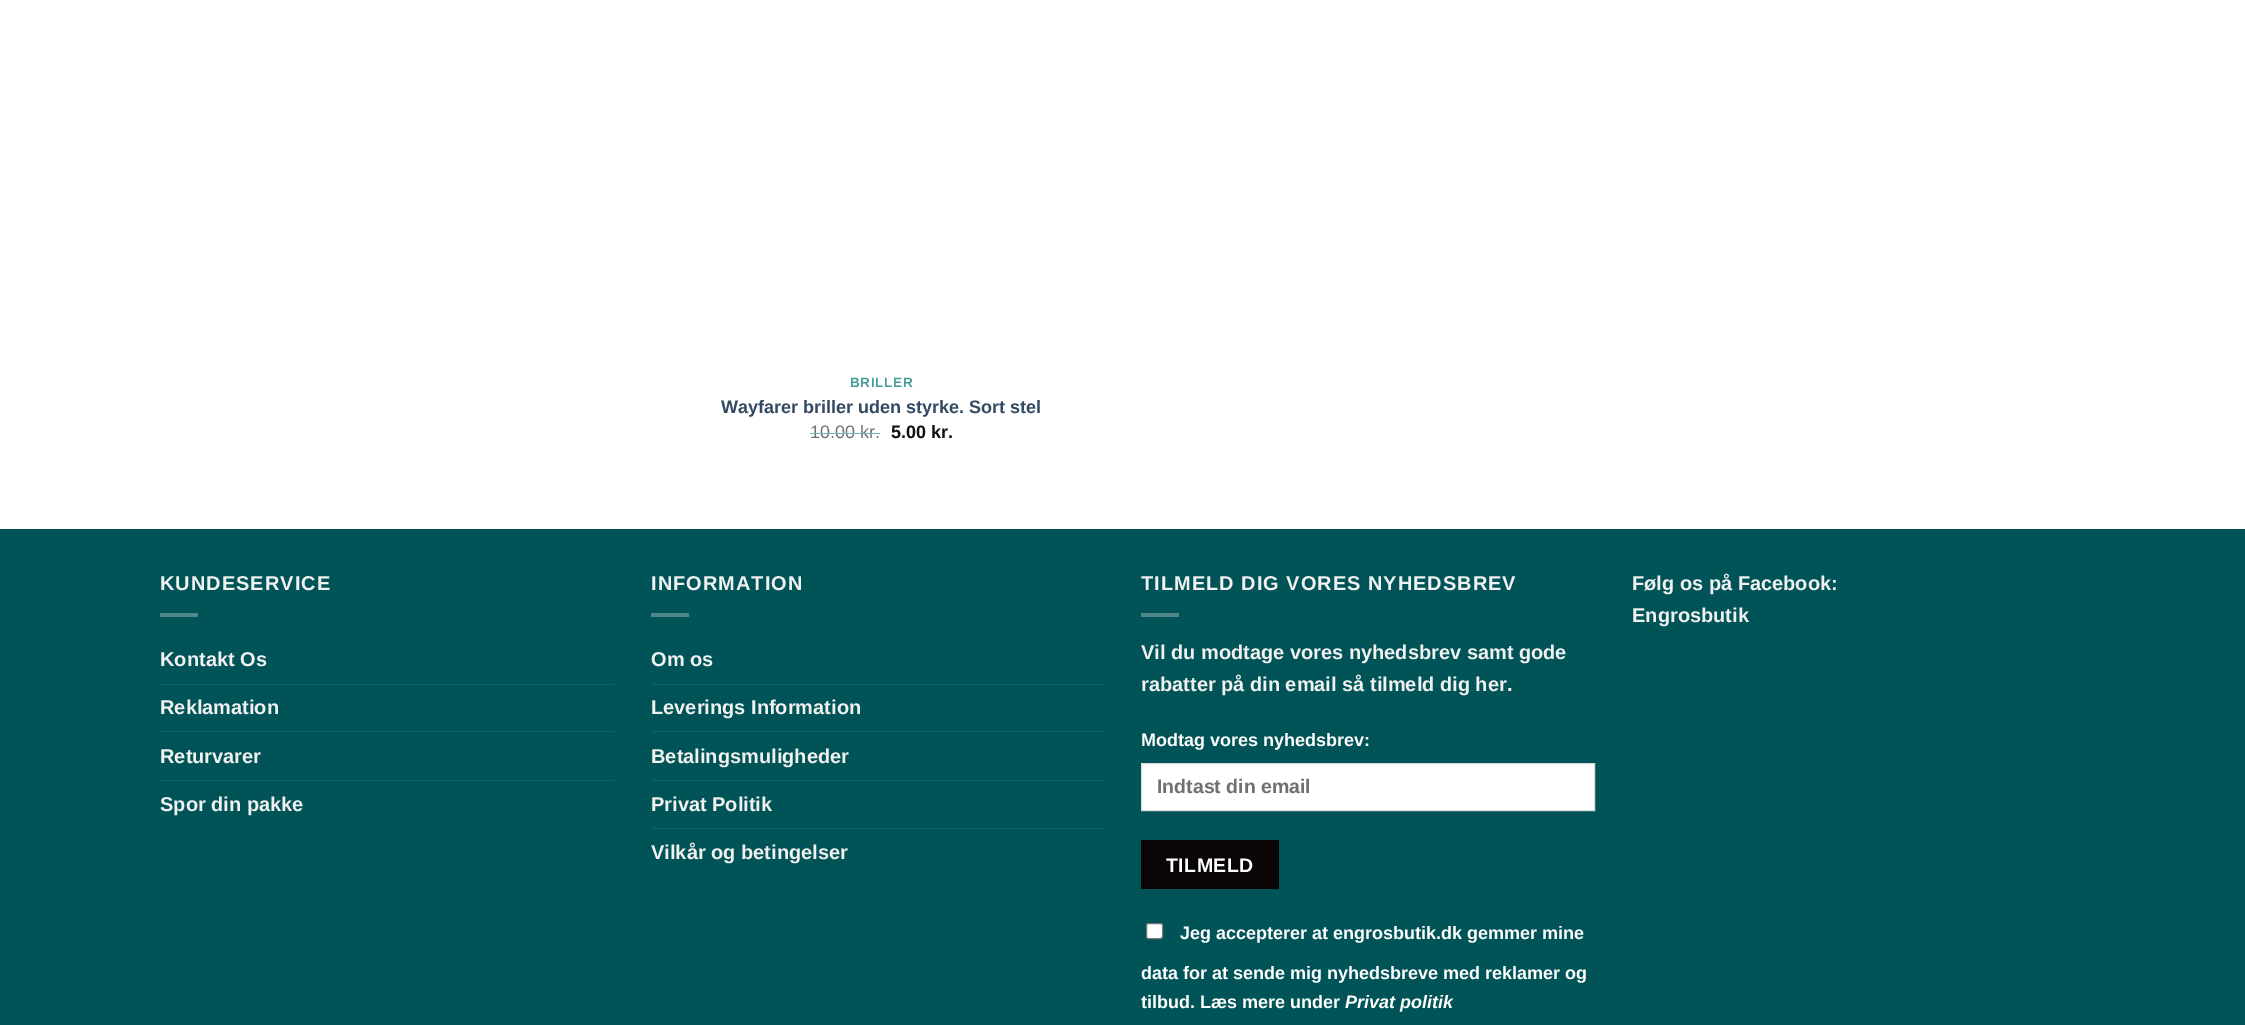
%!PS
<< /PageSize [2245 1025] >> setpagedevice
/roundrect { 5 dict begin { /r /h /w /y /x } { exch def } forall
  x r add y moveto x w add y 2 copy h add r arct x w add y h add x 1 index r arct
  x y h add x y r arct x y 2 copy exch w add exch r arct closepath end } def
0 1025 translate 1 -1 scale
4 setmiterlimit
1 setgray
0 0 2245 1025 rectfill
/LiberationSans-Bold [13.5 0 0 -13.5 0 0] selectfont
0.259 0.616 0.612 setrgbcolor
850 387 moveto 0.75 0 (BRILLER) ashow
/LiberationSans-Bold [18 0 0 -18 0 0] selectfont
0.2 0.282 0.384 setrgbcolor
721 413 moveto (Wayfarer briller uden styrke. Sort stel) show
/LiberationSans-Regular [18 0 0 -18 0 0] selectfont
0.439 setgray
810 438 moveto (10.00 kr.) show
0.443 0.714 0.71 setrgbcolor
810 433 70 1 rectfill
/LiberationSans-Bold [18 0 0 -18 0 0] selectfont
0.067 setgray
891 438 moveto (5.00 kr.) show
0 0.325 0.337 setrgbcolor
0 530 2245 495 rectfill
0 0.31 0.322 setrgbcolor
0 529 2245 1 rectfill
/LiberationSans-Bold [20 0 0 -20 0 0] selectfont
0.945 setgray
160 590 moveto 1 0 (KUNDESERVICE) ashow
0.302 0.529 0.537 setrgbcolor
160 613 38 4 rectfill
0.945 setgray
160 666 moveto (Kontakt Os) show
0.078 0.38 0.392 setrgbcolor
160 684 454 1 rectfill
0.945 setgray
160 714 moveto (Reklamation) show
0.078 0.38 0.392 setrgbcolor
160 731 454 1 rectfill
0.945 setgray
160 763 moveto (Returvarer) show
0.078 0.38 0.392 setrgbcolor
160 780 454 1 rectfill
0.945 setgray
160 811 moveto (Spor din pakke) show
651 590 moveto 1 0 (INFORMATION) ashow
0.302 0.529 0.537 setrgbcolor
651 613 38 4 rectfill
0.945 setgray
651 666 moveto (Om os) show
0.078 0.38 0.392 setrgbcolor
651 684 453 1 rectfill
0.945 setgray
651 714 moveto (Leverings Information) show
0.078 0.38 0.392 setrgbcolor
651 731 453 1 rectfill
0.945 setgray
651 763 moveto (Betalingsmuligheder) show
0.078 0.38 0.392 setrgbcolor
651 780 453 1 rectfill
0.945 setgray
651 811 moveto (Privat Politik) show
0.078 0.38 0.392 setrgbcolor
651 828 453 1 rectfill
0.945 setgray
651 859 moveto (Vilkår og betingelser) show
1141 590 moveto 1 0 (TILMELD DIG VORES NYHEDSBREV) ashow
0.302 0.529 0.537 setrgbcolor
1141 613 38 4 rectfill
0.945 setgray
1141 659 moveto (Vil du modtage vores nyhedsbrev samt gode) show
1141 691 moveto (rabatter på din email så tilmeld dig her.) show
/LiberationSans-Bold [18 0 0 -18 0 0] selectfont
1 setgray
1141 746 moveto (Modtag vores nyhedsbrev:) show
newpath 1141.5 763.5 moveto 1594.5 763.5 lineto 1594.5 810.5 lineto 1141.5 810.5 lineto closepath gsave fill grestore
0.867 setgray
stroke
/LiberationSans-Bold [19.5 0 0 -19.5 0 0] selectfont
0.439 setgray
1157 793 moveto (Indtast din email) show
0.039 0.02 0.02 setrgbcolor
1141 840 138 49 rectfill
1 setgray
1166 872 moveto 0.5 0 (TILMELD) ashow
1146.5 923.5 16 15 2 roundrect gsave fill grestore
0.463 setgray
stroke
/LiberationSans-Bold [18 0 0 -18 0 0] selectfont
1 setgray
1180 939 moveto (Jeg accepterer at engrosbutik.dk gemmer mine) show
1141 979 moveto (data for at sende mig nyhedsbreve med reklamer og) show
1141 1008 moveto (tilbud. Læs mere under) show
/LiberationSans-BoldItalic [18 0 0 -18 0 0] selectfont
1345 1008 moveto (Privat politik) show
/LiberationSans-Bold [20 0 0 -20 0 0] selectfont
0.945 setgray
1632 590 moveto (Følg os på Facebook:) show
1632 622 moveto (Engrosbutik) show
showpage
